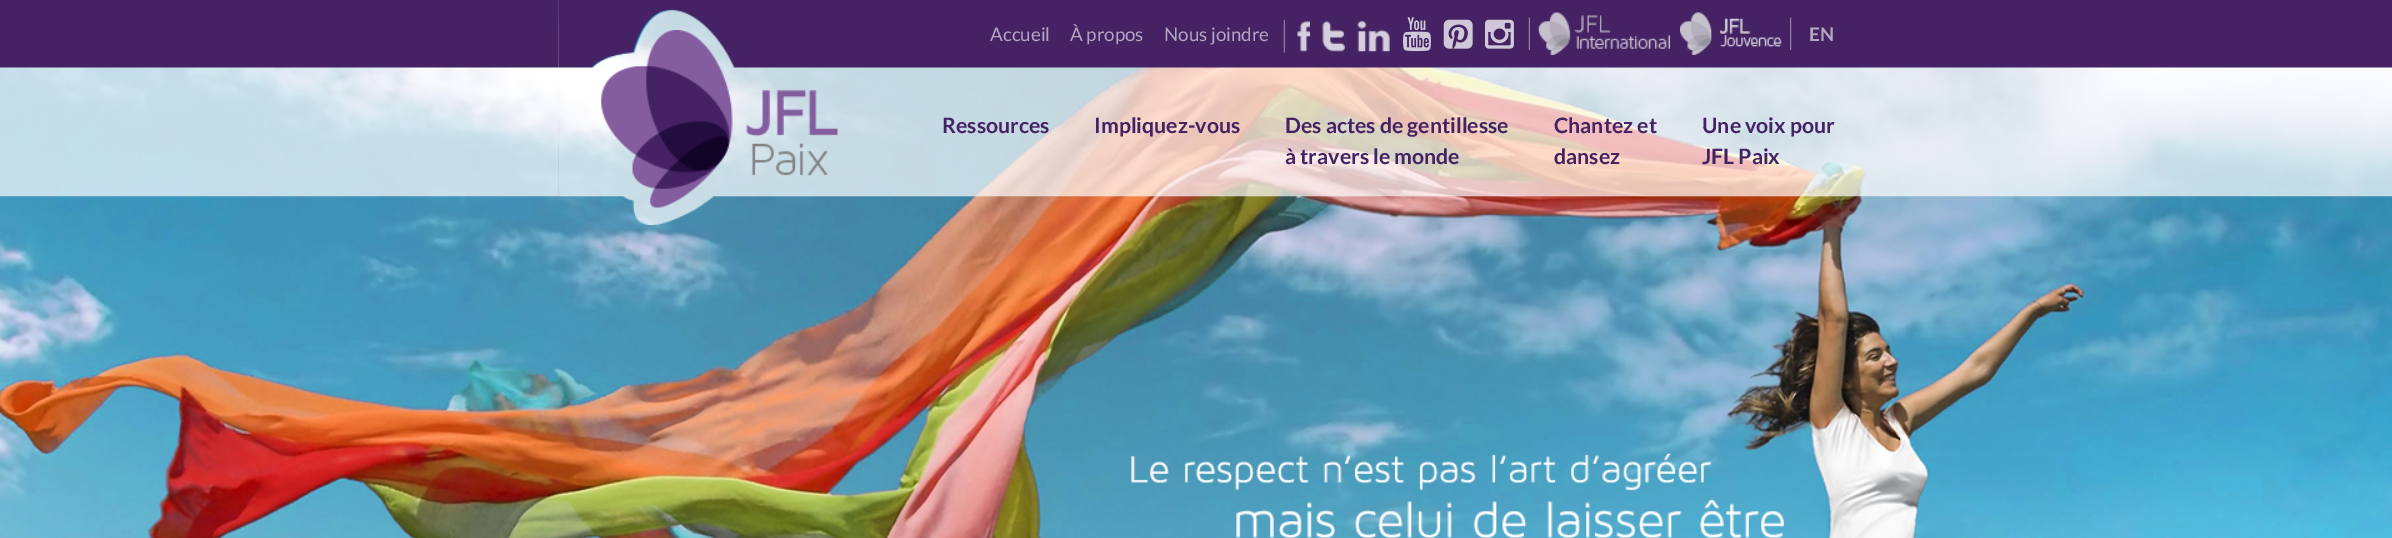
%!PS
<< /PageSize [2392 538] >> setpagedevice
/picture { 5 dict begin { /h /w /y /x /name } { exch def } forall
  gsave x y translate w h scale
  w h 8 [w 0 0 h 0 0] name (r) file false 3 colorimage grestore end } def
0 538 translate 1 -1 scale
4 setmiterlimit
1 setgray
0 0 2392 538 rectfill
(img1.rgb) 0 0 2392 538 picture
(img2.rgb) 558 0 1277 225 picture
(img3.rgb) 0 0 559 197 picture
(img4.rgb) 601 30 237 178 picture
/Lato-Regular [18.75 0 0 -18.75 0 0] selectfont
0.706 0.655 0.757 setrgbcolor
990 41 moveto (Accueil) show
1070 41 moveto (À propos) show
1164 41 moveto (Nous joindre) show
(img5.rgb) 1283 20 2 33 picture
(img6.rgb) 1297 21 13 31 picture
(img7.rgb) 1322 21 23 31 picture
(img8.rgb) 1357 21 33 31 picture
(img9.rgb) 1403 17 28 35 picture
(img10.rgb) 1443 19 30 30 picture
(img11.rgb) 1485 19 29 30 picture
(img12.rgb) 1528 17 2 33 picture
(img13.rgb) 1538 12 132 43 picture
(img14.rgb) 1790 17 2 33 picture
(img15.rgb) 1680 12 102 43 picture
/Lato-Bold [18.75 0 0 -18.75 0 0] selectfont
1809 41 moveto (EN) show
(img16.rgb) 1835 0 557 197 picture
/Lato-Bold [21.25 0 0 -21.25 0 0] selectfont
0.267 0.133 0.388 setrgbcolor
942 133 moveto (Ressources) show
1094 133 moveto (Impliquez-vous) show
1285 133 moveto (Des actes de gentillesse) show
1285 164 moveto (à travers le monde) show
1554 133 moveto (Chantez et) show
1554 164 moveto (dansez) show
1702 133 moveto (Une voix pour) show
1702 164 moveto (JFL Paix) show
showpage
